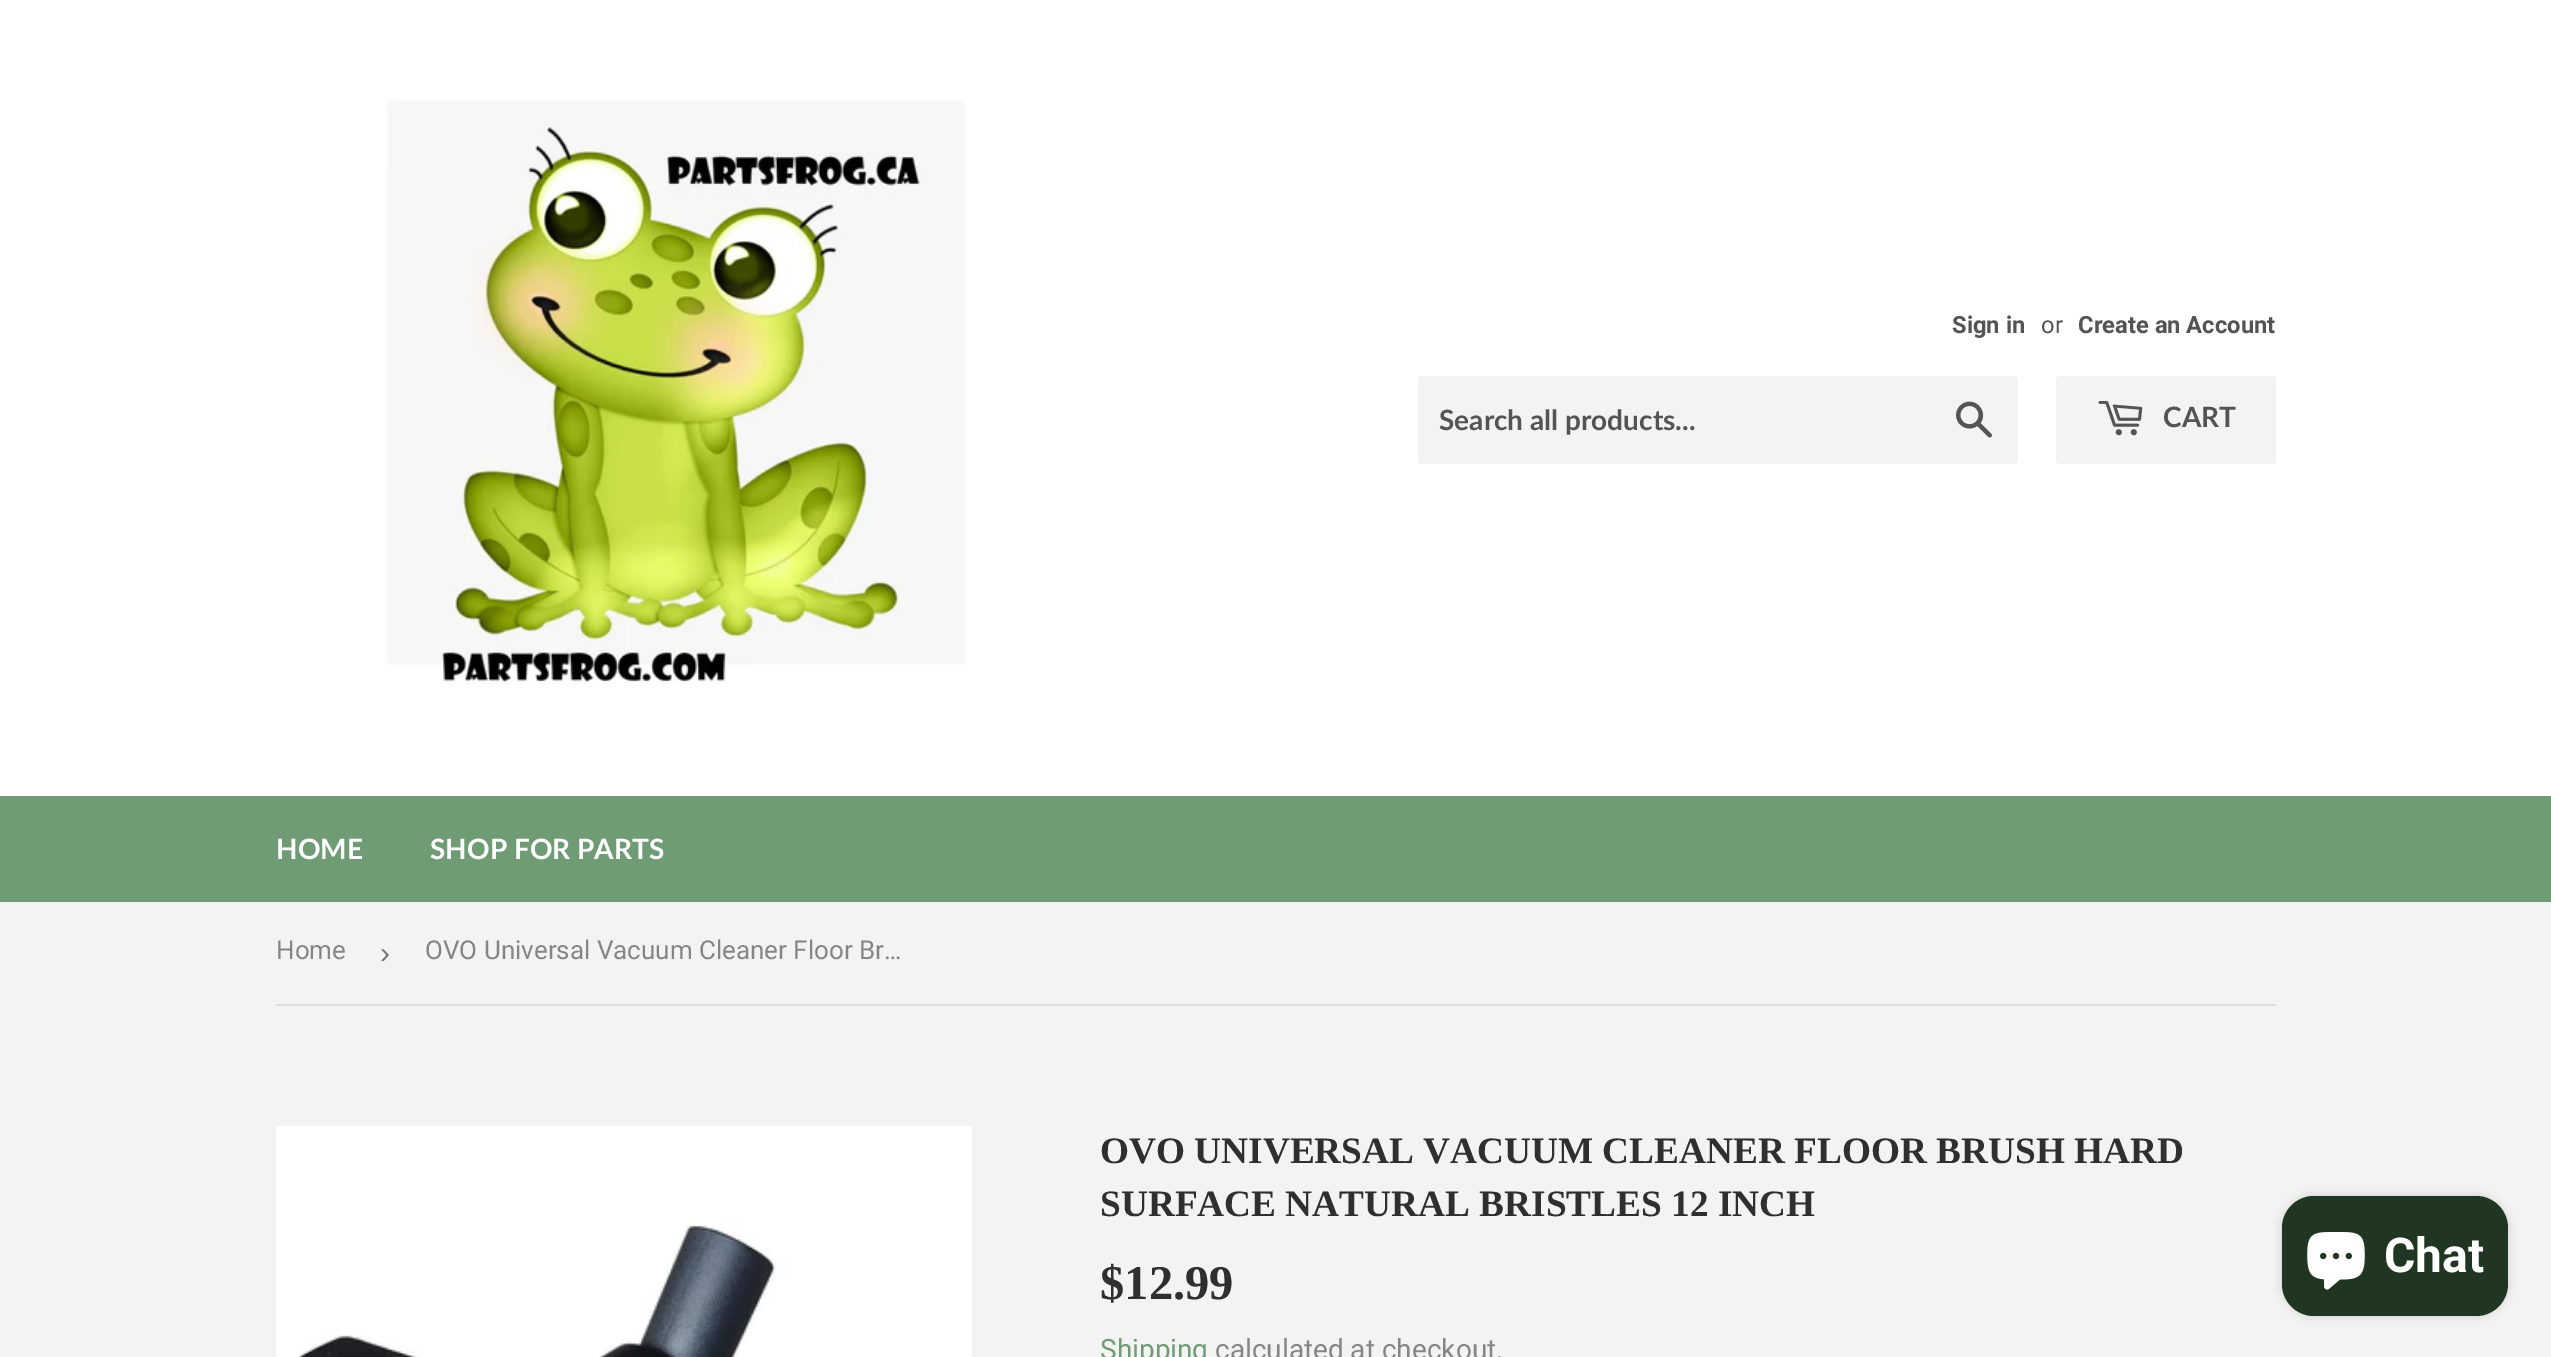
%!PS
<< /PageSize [2551 1357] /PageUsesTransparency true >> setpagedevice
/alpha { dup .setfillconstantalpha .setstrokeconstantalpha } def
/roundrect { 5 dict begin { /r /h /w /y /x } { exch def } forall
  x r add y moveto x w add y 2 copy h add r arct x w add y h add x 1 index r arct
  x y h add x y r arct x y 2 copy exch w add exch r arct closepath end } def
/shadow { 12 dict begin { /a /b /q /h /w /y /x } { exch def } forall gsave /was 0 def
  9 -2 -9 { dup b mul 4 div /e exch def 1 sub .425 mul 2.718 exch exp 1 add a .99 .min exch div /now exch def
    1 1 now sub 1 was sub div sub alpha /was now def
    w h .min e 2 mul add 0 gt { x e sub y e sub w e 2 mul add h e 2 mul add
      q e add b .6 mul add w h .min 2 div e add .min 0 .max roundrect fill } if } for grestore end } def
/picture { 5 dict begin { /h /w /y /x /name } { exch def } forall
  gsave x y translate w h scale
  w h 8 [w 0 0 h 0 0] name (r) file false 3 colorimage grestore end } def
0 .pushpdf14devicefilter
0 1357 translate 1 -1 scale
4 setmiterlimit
0.953 setgray
0 0 2551 1357 rectfill
1 setgray
0 0 2551 796 rectfill
(img1.rgb) 387 100 579 585 picture
/Roboto-Bold [23.75 0 0 -23.75 0 0] selectfont
0.329 setgray
1952 333 moveto (Sign in) show
/Roboto-Regular [23.75 0 0 -23.75 0 0] selectfont
2041 333 moveto (or) show
/Roboto-Bold [23.75 0 0 -23.75 0 0] selectfont
2078 333 moveto (Create an Account) show
0.953 setgray
1418 376 600 88 4 roundrect fill
/Lato-Bold [28 0 0 -28 0 0] selectfont
0.329 setgray
1439 430 moveto (Search all products...) show
(img2.rgb) 1956 401 36 37 picture
0.953 setgray
2056 376 220 88 4 roundrect fill
(img3.rgb) 2098 401 45 35 picture
0.329 setgray
2163 427 moveto (CART) show
0.435 0.612 0.455 setrgbcolor
0 796 2551 106 rectfill
1 setgray
276 859 moveto (HOME) show
430 859 moveto (SHOP FOR PARTS) show
0.871 setgray
276 1004 2000 2 rectfill
/Roboto-Regular [26 0 0 -26 0 0] selectfont
0.522 setgray
276 959 moveto (Home) show
/LiberationSans-Regular [30 0 0 -30 0 0] selectfont
0.463 setgray
380 963 moveto (›) show
/Roboto-Regular [26 0 0 -26 0 0] selectfont
0.522 setgray
425 959 moveto (OVO Universal Vacuum Cleaner Floor Br…) show
(img4.rgb) 276 1126 696 231 picture
/LiberationSerif-Bold [37.3 0 0 -37.3 0 0] selectfont
0.184 setgray
1100 1163 moveto (OVO UNIVERSAL VACUUM CLEANER FLOOR BRUSH HARD) show
1100 1216 moveto (SURFACE NATURAL BRISTLES 12 INCH) show
/LiberationSerif-Bold [48.5 0 0 -48.5 0 0] selectfont
1100 1299 moveto ($12.99) show
/Roboto-Regular [28 0 0 -28 0 0] selectfont
0.435 0.612 0.455 setrgbcolor
1100 1359 moveto (Shipping) show
0.522 setgray
1215 1359 moveto (calculated at checkout.) show
0 setgray
2282 1196 226 120 32 5 0.15 shadow
0.125 0.212 0.133 setrgbcolor
2282 1196 226 120 32 roundrect fill
(img5.rgb) 2307 1232 58 58 picture
/Roboto-Bold [48 0 0 -48 0 0] selectfont
1 setgray
2384 1272 moveto (Chat) show
.poppdf14devicefilter showpage
